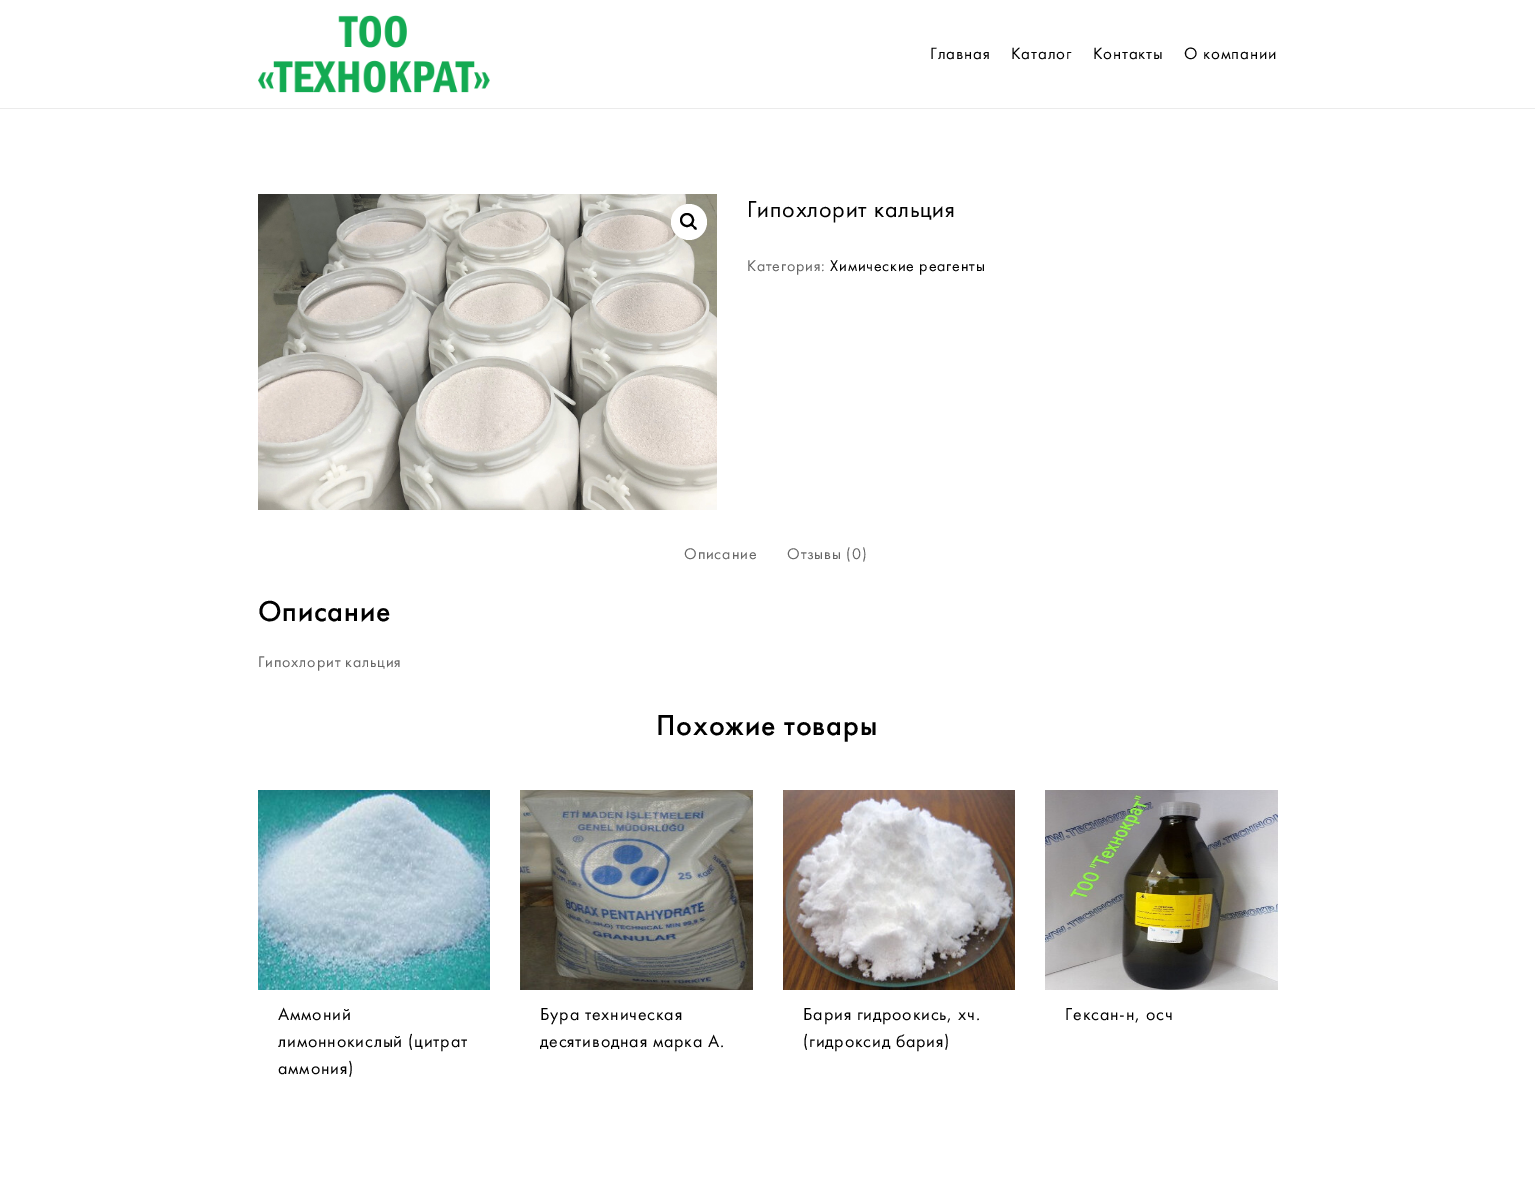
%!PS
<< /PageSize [1535 1203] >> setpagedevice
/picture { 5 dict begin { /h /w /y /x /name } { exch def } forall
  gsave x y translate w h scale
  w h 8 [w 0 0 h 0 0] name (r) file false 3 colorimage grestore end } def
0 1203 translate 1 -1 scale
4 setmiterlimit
1 setgray
0 0 1535 1203 rectfill
0.922 setgray
0 108 1535 1 rectfill
(img1.rgb) 258 15 232 78 picture
/FuturaPT-Regular [17 0 0 -17 0 0] selectfont
0 setgray
930 59 moveto 0.8 0 (Главная) ashow
1011 59 moveto 0.8 0 (Каталог) ashow
1093 59 moveto 0.8 0 (Контакты) ashow
1184 59 moveto 0.8 0 (О компании) ashow
(img2.rgb) 258 194 459 316 picture
1 setgray
newpath 689 222 18 0 360 arc closepath fill
0 setgray
2 setlinewidth
newpath 687 220 6 0 360 arc closepath stroke
newpath 690.5 223.5 moveto 692 222.5 693.5 225 694 226 curveto 695 226.5 697.5 228 696.5 229.5 curveto 695 230.5 693.5 228 693 227 curveto 692 226.5 689.5 225 690.5 223.5 curveto closepath fill
/FuturaPT-Regular [24 0 0 -24 0 0] selectfont
747 217 moveto 0.8 0 (Гипохлорит кальция) ashow
/FuturaPT-Regular [16 0 0 -16 0 0] selectfont
0.4 setgray
747 271 moveto 0.8 0 (Категория:) ashow
0 setgray
830 271 moveto 0.8 0 (Химические реагенты) ashow
0.4 setgray
684 559 moveto 0.8 0 (Описание) ashow
787 559 moveto 0.8 0 (Отзывы \(0\)) ashow
/FuturaPT-Medium [30 0 0 -30 0 0] selectfont
0 setgray
258 621 moveto 0.8 0 (Описание) ashow
/FuturaPT-Regular [16 0 0 -16 0 0] selectfont
0.4 setgray
258 667 moveto 0.8 0 (Гипохлорит кальция) ashow
/FuturaPT-Medium [30 0 0 -30 0 0] selectfont
0 setgray
656 735 moveto 0.8 0 (Похожие товары) ashow
(img3.rgb) 258 790 232 200 picture
/FuturaPT-Regular [18 0 0 -18 0 0] selectfont
278 1020 moveto 0.8 0 (Аммоний) ashow
278 1047 moveto 0.8 0 (лимоннокислый \(цитрат) ashow
278 1074 moveto 0.8 0 (аммония\)) ashow
(img4.rgb) 520 790 233 200 picture
540 1020 moveto 0.8 0 (Бура техническая) ashow
540 1047 moveto 0.8 0 (десятиводная марка А.) ashow
(img5.rgb) 783 790 232 200 picture
803 1020 moveto 0.8 0 (Бария гидроокись, хч.) ashow
803 1047 moveto 0.8 0 (\(гидроксид бария\)) ashow
(img6.rgb) 1045 790 233 200 picture
1065 1020 moveto 0.8 0 (Гексан-н, осч) ashow
showpage
